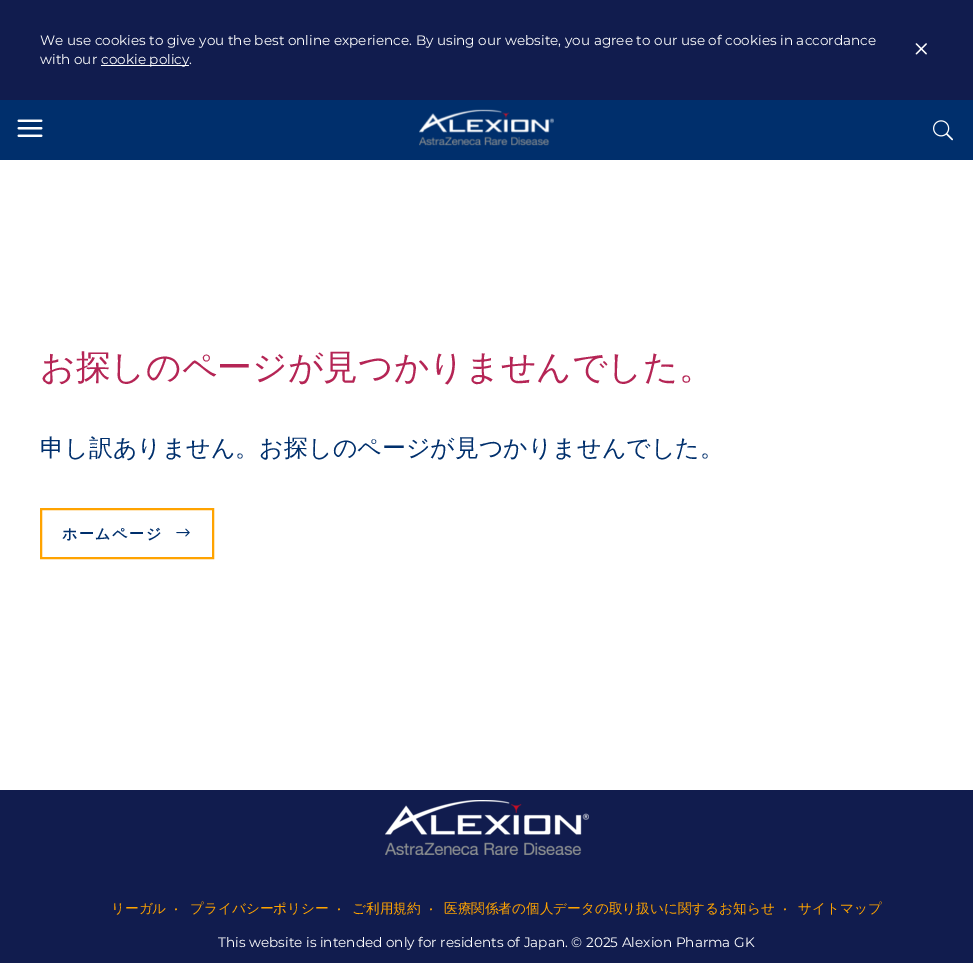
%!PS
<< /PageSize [973 963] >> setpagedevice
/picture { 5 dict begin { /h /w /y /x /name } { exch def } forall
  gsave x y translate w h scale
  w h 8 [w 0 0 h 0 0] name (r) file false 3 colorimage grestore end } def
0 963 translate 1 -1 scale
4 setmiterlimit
1 setgray
0 0 973 963 rectfill
0.067 0.11 0.306 setrgbcolor
0 0 973 100 rectfill
/Montserrat-Regular [13.62 0 0 -13.62 0 0] selectfont
1 setgray
40 45 moveto (We use cookies to give you the best online experience. By using our website, you agree to our use of cookies in accordance) show
40 64 moveto (with our) show
101 65 88 1 rectfill
101 64 moveto (cookie policy.) show
(img1.rgb) 915 43 12 12 picture
0 0.184 0.424 setrgbcolor
0 100 973 60 rectfill
(img2.rgb) 17 119 26 18 picture
(img3.rgb) 419 109 135 37 picture
(img4.rgb) 933 120 20 21 picture
/WenQuanYiZenHei-Medium [34.8 0 0 -34.8 0 0] selectfont
0.71 0.145 0.333 setrgbcolor
40 379 moveto (お探しのページが見つかりませんでした。) show
/WenQuanYiZenHei-Medium [24 0 0 -24 0 0] selectfont
0 0.184 0.424 setrgbcolor
40 456 moveto (申し訳ありません。お探しのページが見つかりませんでした。) show
1 0.639 0 setrgbcolor
2 setlinewidth
41 509 172 49 rectstroke
/WenQuanYiZenHei-Bold [15 0 0 -15 0 0] selectfont
0 0.184 0.424 setrgbcolor
62 539 moveto 1.5 0 (ホームページ) ashow
(img5.rgb) 176 528 14 9 picture
0.067 0.11 0.306 setrgbcolor
0 790 973 173 rectfill
(img6.rgb) 385 800 204 55 picture
/WenQuanYiZenHei-Medium [13.62 0 0 -13.62 0 0] selectfont
1 0.639 0 setrgbcolor
111 913 moveto (リーガル) show
/Montserrat-Regular [13.62 0 0 -13.62 0 0] selectfont
174 913 moveto (•) show
/WenQuanYiZenHei-Medium [13.62 0 0 -13.62 0 0] selectfont
190 913 moveto (プライバシーポリシー) show
/Montserrat-Regular [13.62 0 0 -13.62 0 0] selectfont
337 913 moveto (•) show
/WenQuanYiZenHei-Medium [13.62 0 0 -13.62 0 0] selectfont
352 913 moveto (ご利用規約) show
/Montserrat-Regular [13.62 0 0 -13.62 0 0] selectfont
429 913 moveto (•) show
/WenQuanYiZenHei-Medium [13.62 0 0 -13.62 0 0] selectfont
444 913 moveto (医療関係者の個人データの取り扱いに関するお知らせ) show
/Montserrat-Regular [13.62 0 0 -13.62 0 0] selectfont
783 913 moveto (•) show
/WenQuanYiZenHei-Medium [13.62 0 0 -13.62 0 0] selectfont
798 913 moveto (サイトマップ) show
/Montserrat-Regular [13.62 0 0 -13.62 0 0] selectfont
1 setgray
218 947 moveto (This website is intended only for residents of Japan. © 2025 Alexion Pharma GK) show
showpage
